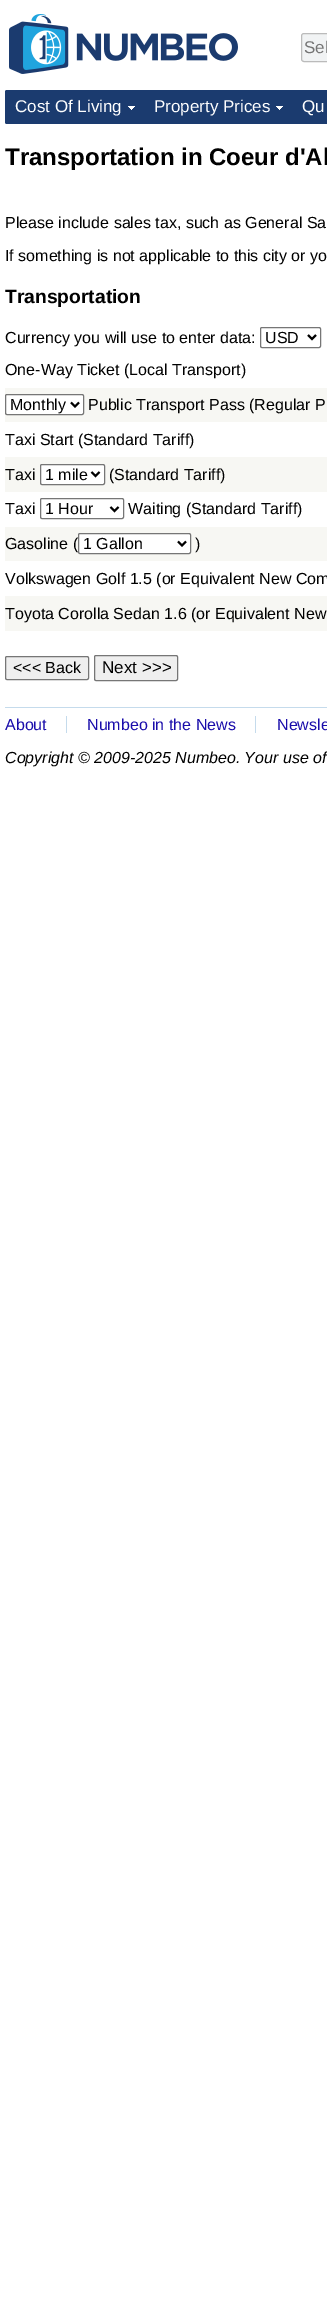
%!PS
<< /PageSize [327 2305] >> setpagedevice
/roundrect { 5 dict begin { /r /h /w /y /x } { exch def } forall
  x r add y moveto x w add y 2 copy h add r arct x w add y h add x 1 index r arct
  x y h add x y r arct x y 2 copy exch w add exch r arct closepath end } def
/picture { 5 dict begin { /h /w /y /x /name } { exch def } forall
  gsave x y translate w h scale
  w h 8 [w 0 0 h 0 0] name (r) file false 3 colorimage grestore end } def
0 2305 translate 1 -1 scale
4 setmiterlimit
1 setgray
0 0 327 2305 rectfill
(img1.rgb) 9 14 229 60 picture
0.945 0.953 0.957 setrgbcolor
301.5 33.5 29 28 2.5 roundrect gsave fill grestore
0.733 setgray
stroke
/LiberationSans-Regular [17 0 0 -17 0 0] selectfont
0.459 setgray
304 53 moveto (Sel) show
0.106 0.231 0.435 setrgbcolor
5 90 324 34 2 roundrect fill
5 90 139 34 3 roundrect fill
(img2.rgb) 128 106 7 4 picture
1 setgray
15 112 moveto (Cost Of Living) show
(img2.rgb) 276 106 7 4 picture
154 112 moveto (Property Prices) show
302 112 moveto (Qu) show
/LiberationSans-Bold [24 0 0 -24 0 0] selectfont
0 setgray
5 165 moveto (Transportation in Coeur d'Al) show
/LiberationSans-Regular [16 0 0 -16 0 0] selectfont
5 228 moveto (Please include sales tax, such as General Sa) show
5 261 moveto (If something is not applicable to this city or yo) show
/LiberationSans-Bold [19.25 0 0 -19.25 0 0] selectfont
5 303 moveto (Transportation) show
/LiberationSans-Regular [16 0 0 -16 0 0] selectfont
5 343 moveto (Currency you will use to enter data:) show
0.463 setgray
260.5 327.5 60 20 1.5 roundrect stroke
0 setgray
2 setlinewidth
newpath 308 335 moveto 312 339 lineto 316 335 lineto stroke
265 343 moveto (USD) show
5 375 moveto (One-Way Ticket \(Local Transport\)) show
0.969 0.969 0.953 setrgbcolor
5 388 322 34 rectfill
1 setgray
5.5 394.5 78 20 1.5 roundrect gsave fill grestore
0.463 setgray
1 setlinewidth
stroke
0 setgray
2 setlinewidth
newpath 71 402.5 moveto 75 406.5 lineto 79 402.5 lineto stroke
10 410 moveto (Monthly) show
88 410 moveto (Public Transport Pass \(Regular P) show
5 445 moveto (Taxi Start \(Standard Tariff\)) show
0.969 0.969 0.953 setrgbcolor
5 457 322 35 rectfill
0 setgray
5 480 moveto (Taxi) show
1 setgray
40.5 464.5 64 20 1.5 roundrect gsave fill grestore
0.463 setgray
1 setlinewidth
stroke
0 setgray
2 setlinewidth
newpath 91.5 472 moveto 95.5 476 lineto 99.5 472 lineto stroke
45 480 moveto (1 mile) show
109 480 moveto (\(Standard Tariff\)) show
5 514 moveto (Taxi) show
0.463 setgray
1 setlinewidth
40.5 498.5 83 20 1.5 roundrect stroke
0 setgray
2 setlinewidth
newpath 110.5 507 moveto 114.5 511 lineto 118.5 507 lineto stroke
45 514 moveto (1 Hour) show
128 514 moveto (Waiting \(Standard Tariff\)) show
0.969 0.969 0.953 setrgbcolor
5 527 322 34 rectfill
0 setgray
5 549 moveto (Gasoline \() show
1 setgray
78.5 533.5 112 20 1.5 roundrect gsave fill grestore
0.463 setgray
1 setlinewidth
stroke
0 setgray
2 setlinewidth
newpath 178 541.5 moveto 182 545.5 lineto 186 541.5 lineto stroke
83 549 moveto (1 Gallon) show
195 549 moveto (\)) show
5 584 moveto (Volkswagen Golf 1.5 \(or Equivalent New Com) show
0.969 0.969 0.953 setrgbcolor
5 596 322 35 rectfill
0 setgray
5 619 moveto (Toyota Corolla Sedan 1.6 \(or Equivalent New) show
0.937 setgray
5.5 656.5 83 23 1.5 roundrect gsave fill grestore
0.463 setgray
1 setlinewidth
stroke
0 setgray
13 673 moveto (<<< Back) show
0.937 setgray
94.5 655.5 83 25 1.5 roundrect gsave fill grestore
0.463 setgray
stroke
/LiberationSans-Regular [17 0 0 -17 0 0] selectfont
0 setgray
102 673 moveto (Next >>>) show
0.773 0.859 0.925 setrgbcolor
5 707 322 1 rectfill
/LiberationSans-Regular [16 0 0 -16 0 0] selectfont
0.102 0.051 0.671 setrgbcolor
5 730 moveto (About) show
0.773 0.859 0.925 setrgbcolor
66 716 1 17 rectfill
0.102 0.051 0.671 setrgbcolor
87 730 moveto (Numbeo in the News) show
0.773 0.859 0.925 setrgbcolor
255 716 1 17 rectfill
0.102 0.051 0.671 setrgbcolor
277 730 moveto (Newsle) show
/LiberationSans-Italic [16 0 0 -16 0 0] selectfont
0 setgray
5 763 moveto (Copyright © 2009-2025 Numbeo. Your use of) show
showpage
